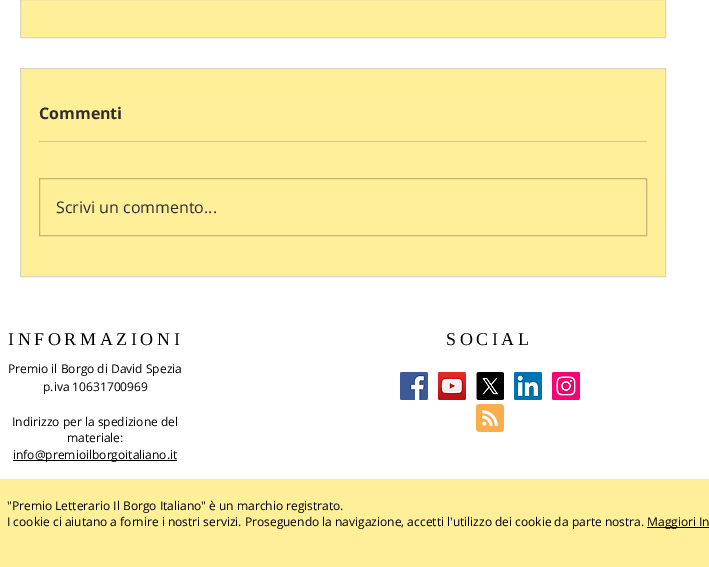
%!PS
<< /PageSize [709 567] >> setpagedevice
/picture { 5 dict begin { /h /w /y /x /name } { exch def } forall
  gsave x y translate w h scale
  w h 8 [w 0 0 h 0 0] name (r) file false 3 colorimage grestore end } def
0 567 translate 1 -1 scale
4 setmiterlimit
1 setgray
0 0 709 567 rectfill
1 0.937 0.596 setrgbcolor
newpath 20.5 -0.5 moveto 665.5 -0.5 lineto 665.5 37.5 lineto 20.5 37.5 lineto closepath gsave fill grestore
0.851 0.835 0.749 setrgbcolor
stroke
1 0.937 0.596 setrgbcolor
newpath 20.5 68.5 moveto 665.5 68.5 lineto 665.5 276.5 lineto 20.5 276.5 lineto closepath gsave fill grestore
0.851 0.835 0.749 setrgbcolor
stroke
/OpenSans-Bold [16 0 0 -16 0 0] selectfont
0.184 0.18 0.18 setrgbcolor
39 119 moveto (Commenti) show
0.835 0.784 0.514 setrgbcolor
39 141 608 1 rectfill
0.757 0.71 0.471 setrgbcolor
39.5 178.5 607 57 rectstroke
/OpenSans-Regular [16 0 0 -16 0 0] selectfont
0.184 0.18 0.18 setrgbcolor
56 213 moveto (Scrivi un commento...) show
/LiberationSerif-Regular [18 0 0 -18 0 0] selectfont
0 setgray
8 345 moveto 3.6 0 (INFORMAZIONI) ashow
/OpenSans-Regular [12 0 0 -12 0 0] selectfont
8 373 moveto (Premio il Borgo di David Spezia) show
43 391 moveto (p.iva 10631700969) show
12 426 moveto (Indirizzo per la spedizione del) show
67 442 moveto (materiale:) show
13 460 164 1 rectfill
13 459 moveto (info@premioilborgoitaliano.it) show
/LiberationSerif-Regular [18 0 0 -18 0 0] selectfont
446 345 moveto 3.6 0 (SOCIAL) ashow
(img1.rgb) 400 372 28 28 picture
(img2.rgb) 438 372 28 28 picture
(img3.rgb) 476 372 28 28 picture
(img4.rgb) 514 372 28 28 picture
(img5.rgb) 552 372 28 28 picture
(img6.rgb) 476 404 28 28 picture
1 0.937 0.596 setrgbcolor
0 479 709 88 rectfill
/OpenSans-Regular [12 0 0 -12 0 0] selectfont
0 setgray
7 510 moveto ("Premio Letterario Il Borgo Italiano" è un marchio registrato.) show
7 526 moveto (I cookie ci aiutano a fornire i nostri servizi. Proseguendo la navigazione, accetti l'utilizzo dei cookie da parte nostra.) show
647 527 62 1 rectfill
647 526 moveto (Maggiori In) show
showpage
